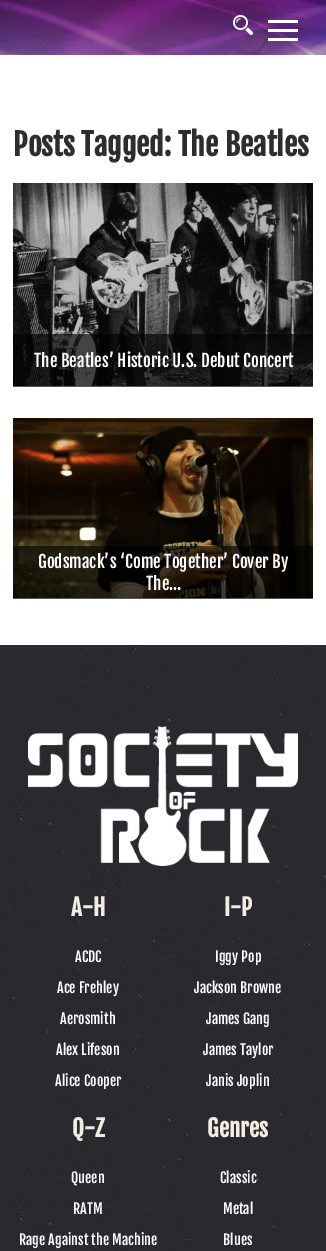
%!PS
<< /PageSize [326 1251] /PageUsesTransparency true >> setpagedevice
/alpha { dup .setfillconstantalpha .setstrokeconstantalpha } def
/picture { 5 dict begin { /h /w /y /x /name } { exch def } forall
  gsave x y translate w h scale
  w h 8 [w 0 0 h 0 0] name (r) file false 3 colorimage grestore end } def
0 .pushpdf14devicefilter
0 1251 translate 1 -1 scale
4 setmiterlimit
1 setgray
0 0 326 1251 rectfill
(img1.rgb) 0 0 326 55 picture
(img2.rgb) 233 15 20 20 picture
268 29 30 3 rectfill
268 20 30 3 rectfill
268 38 30 3 rectfill
/FjallaOne-Bold [30 0 0 -30 0 0] selectfont
0.18 0.176 0.173 setrgbcolor
13 156 moveto (Posts Tagged: The Beatles) show
(img3.rgb) 13 183 300 203 picture
0.65 alpha
0 setgray
13 334 300 53 rectfill
/FjallaOne-Regular [17 0 0 -17 0 0] selectfont
1 alpha
1 setgray
34 367 moveto (The Beatles’ Historic U.S. Debut Concert) show
(img4.rgb) 13 418 300 180 picture
0.65 alpha
0 setgray
13 546 300 53 rectfill
1 alpha
1 setgray
38 568 moveto (Godsmack’s ‘Come Together’ Cover By) show
146 590 moveto (The…) show
(img5.rgb) 0 645 326 606 picture
(img6.rgb) 28 726 270 140 picture
/FjallaOne-Bold [23 0 0 -23 0 0] selectfont
0.949 0.929 0.89 setrgbcolor
71 916 moveto (A-H) show
/FjallaOne-Regular [14 0 0 -14 0 0] selectfont
1 setgray
75 962 moveto (ACDC) show
57 993 moveto (Ace Frehley) show
60 1024 moveto (Aerosmith) show
56 1055 moveto (Alex Lifeson) show
55 1086 moveto (Alice Cooper) show
/FjallaOne-Bold [23 0 0 -23 0 0] selectfont
0.949 0.929 0.89 setrgbcolor
224 916 moveto (I-P) show
/FjallaOne-Regular [14 0 0 -14 0 0] selectfont
1 setgray
215 962 moveto (Iggy Pop) show
194 993 moveto (Jackson Browne) show
206 1024 moveto (James Gang) show
203 1055 moveto (James Taylor) show
206 1086 moveto (Janis Joplin) show
/FjallaOne-Bold [23 0 0 -23 0 0] selectfont
0.949 0.929 0.89 setrgbcolor
72 1137 moveto (Q-Z) show
/FjallaOne-Regular [14 0 0 -14 0 0] selectfont
1 setgray
71 1183 moveto (Queen) show
73 1214 moveto (RATM) show
19 1245 moveto (Rage Against the Machine) show
/FjallaOne-Bold [23 0 0 -23 0 0] selectfont
0.949 0.929 0.89 setrgbcolor
207 1137 moveto (Genres) show
/FjallaOne-Regular [14 0 0 -14 0 0] selectfont
1 setgray
220 1183 moveto (Classic) show
223 1214 moveto (Metal) show
223 1245 moveto (Blues) show
.poppdf14devicefilter showpage
